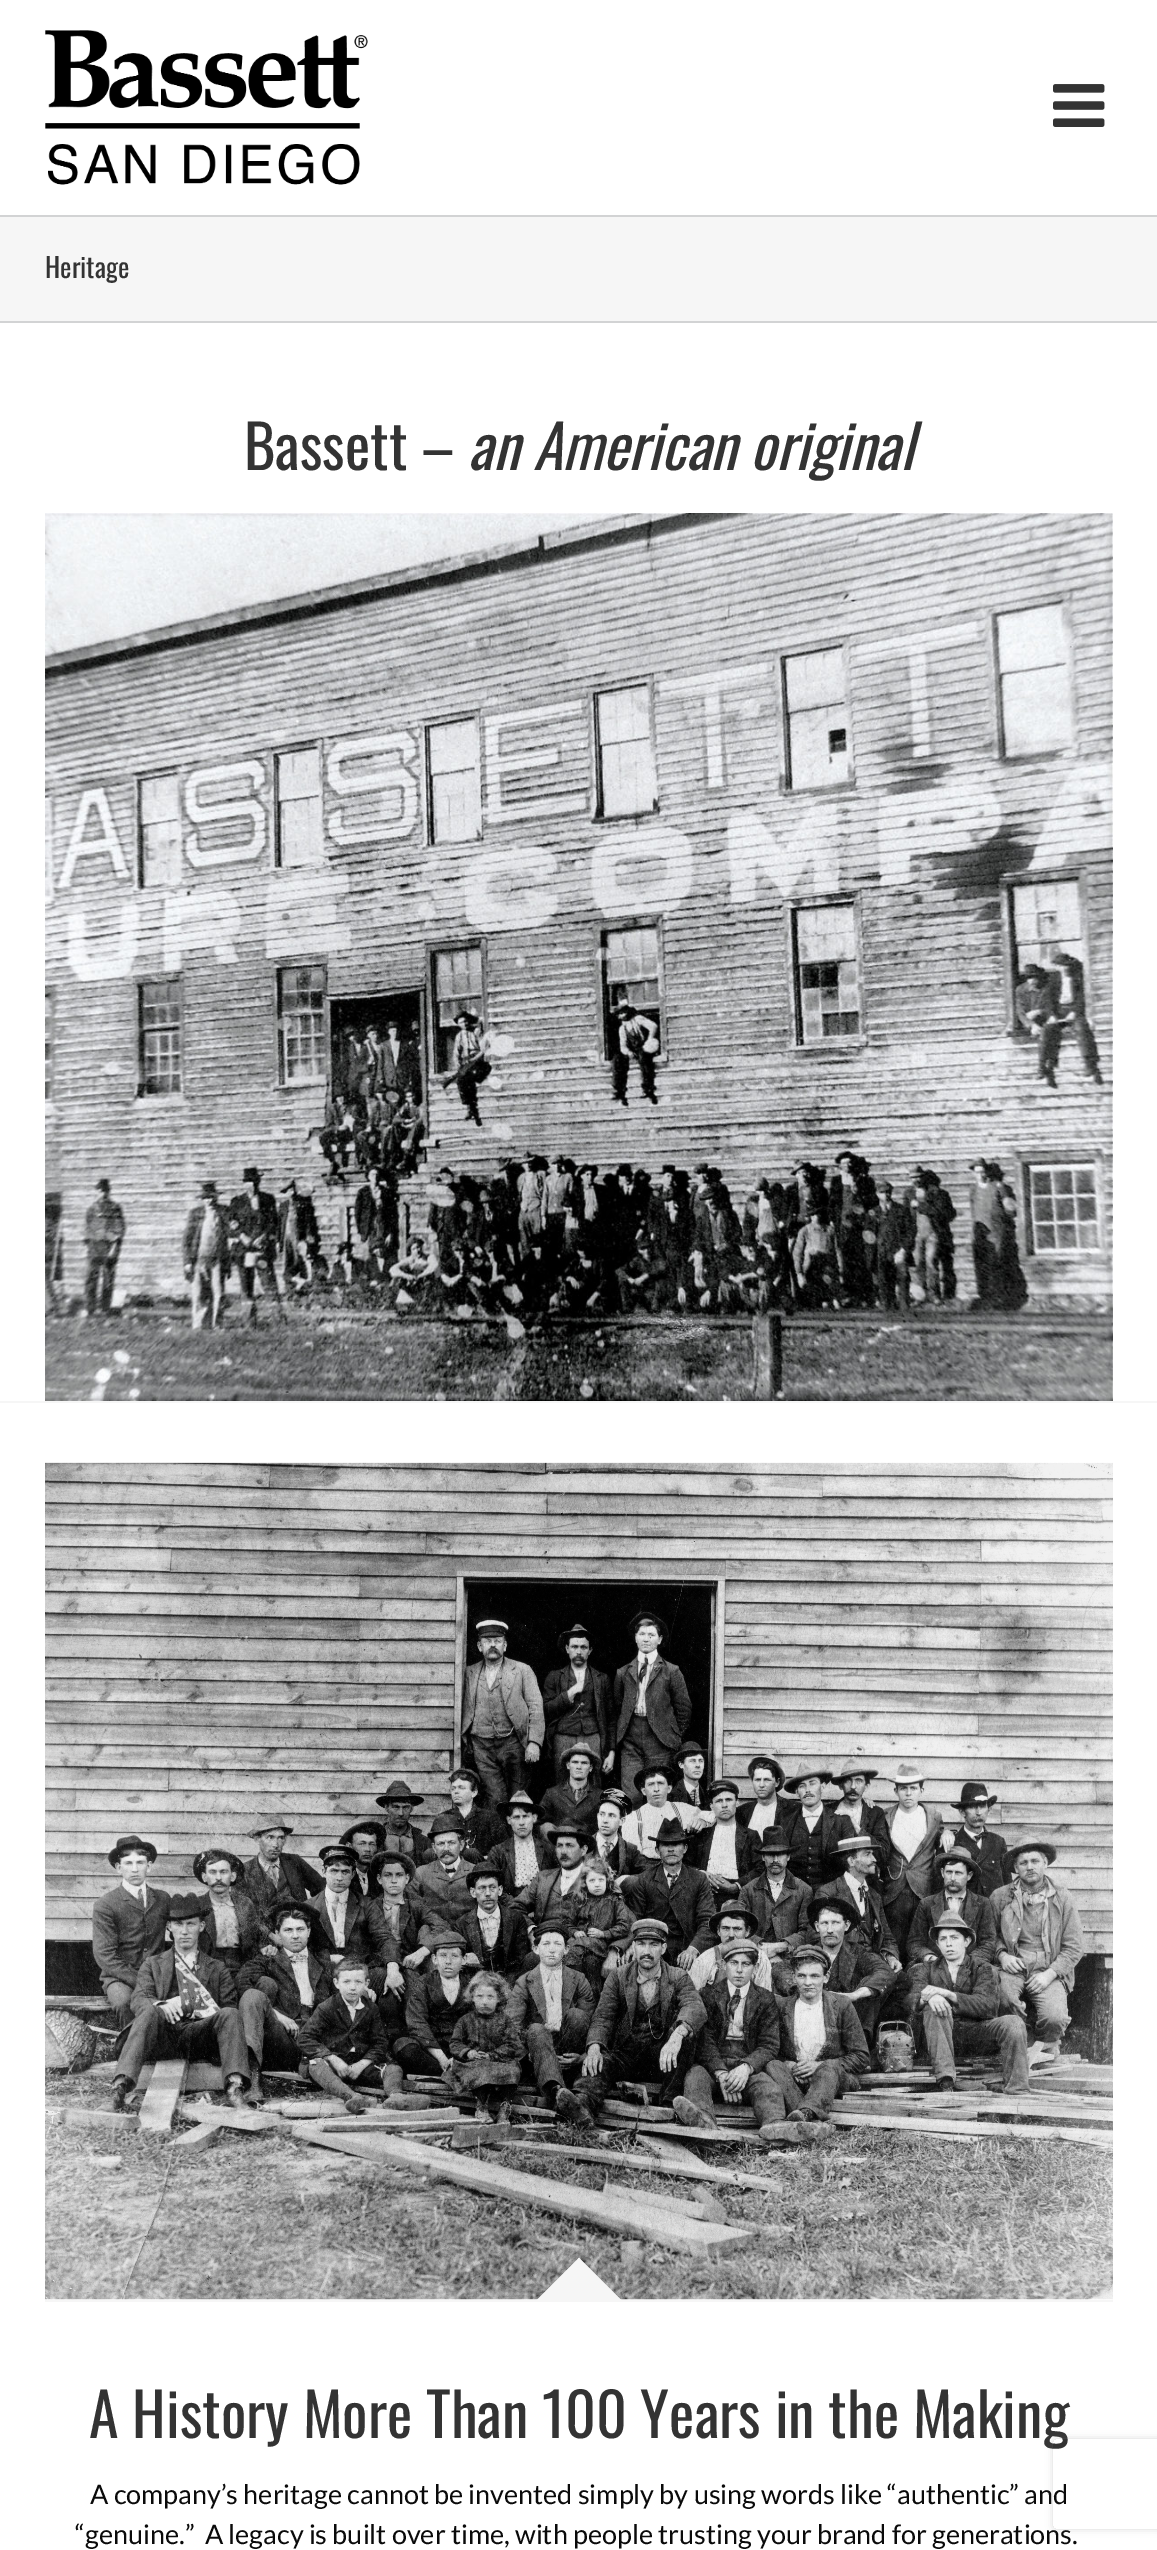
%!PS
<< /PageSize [1157 2550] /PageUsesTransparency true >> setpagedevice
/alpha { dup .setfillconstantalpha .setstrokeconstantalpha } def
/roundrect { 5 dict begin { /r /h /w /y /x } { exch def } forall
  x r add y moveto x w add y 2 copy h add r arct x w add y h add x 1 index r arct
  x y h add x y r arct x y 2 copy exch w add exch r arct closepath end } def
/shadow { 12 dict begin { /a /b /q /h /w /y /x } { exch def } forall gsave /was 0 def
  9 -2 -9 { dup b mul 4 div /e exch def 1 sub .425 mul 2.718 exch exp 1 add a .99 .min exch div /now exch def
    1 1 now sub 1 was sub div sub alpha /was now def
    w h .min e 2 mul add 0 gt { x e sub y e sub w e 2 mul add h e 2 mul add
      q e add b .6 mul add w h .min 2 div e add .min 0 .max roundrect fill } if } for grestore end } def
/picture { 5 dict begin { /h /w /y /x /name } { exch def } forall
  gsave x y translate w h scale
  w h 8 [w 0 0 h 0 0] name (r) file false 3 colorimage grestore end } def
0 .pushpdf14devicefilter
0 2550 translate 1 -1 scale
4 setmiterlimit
1 setgray
0 0 1157 2550 rectfill
(img1.rgb) 45 30 323 155 picture
(img2.rgb) 1053 84 52 43 picture
0.965 setgray
0 217 1157 104 rectfill
0.824 0.827 0.831 setrgbcolor
0 215 1157 2 rectfill
0 321 1157 2 rectfill
/Oswald-Regular [27 0 0 -27 0 0] selectfont
0.2 setgray
45 278 moveto (Heritage) show
/Oswald-Regular [60 0 0 -60 0 0] selectfont
244 470 moveto (Bassett –) show
/Oswald-Italic [60 0 0 -60 0 0] selectfont
468 470 moveto (an American original) show
0.965 setgray
0 1401 1157 2 rectfill
newpath 622 1402 moveto 536 1402 lineto 579 1359 lineto closepath fill
newpath 580 1359 moveto 538 1402 lineto 537 1401 lineto 579 1358 lineto closepath fill
newpath 621 1401 moveto 620 1402 lineto 578 1359 lineto 579 1358 lineto closepath fill
(img3.rgb) 45 513 1068 888 picture
(img4.rgb) 45 1462 1068 838 picture
45 2300 1068 2 rectfill
newpath 622 2301 moveto 536 2301 lineto 579 2258 lineto closepath fill
newpath 580 2259 moveto 538 2301 lineto 537 2300 lineto 579 2258 lineto closepath fill
newpath 621 2300 moveto 620 2301 lineto 578 2259 lineto 579 2258 lineto closepath fill
/Oswald-Regular [60 0 0 -60 0 0] selectfont
0.2 setgray
89 2438 moveto (A History More Than 100 Years in the Making) show
/Lato-Regular [27 0 0 -27 0 0] selectfont
0.039 setgray
90 2504 moveto (A company’s heritage cannot be invented simply by using words like “authentic” and) show
75 2544 moveto (“genuine.”  A legacy is built over time, with people trusting your brand for generations.) show
gsave
newpath 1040 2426 moveto 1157 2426 lineto 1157 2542 lineto 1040 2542 lineto closepath 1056 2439 moveto 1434 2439 lineto 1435.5 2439 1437 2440.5 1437 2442 curveto 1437 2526 lineto 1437 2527.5 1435.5 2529 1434 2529 curveto 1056 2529 lineto 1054.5 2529 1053 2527.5 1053 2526 curveto 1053 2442 lineto 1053 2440.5 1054.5 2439 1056 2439 curveto closepath eoclip newpath
0.502 setgray
1053 2439 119 90 3 4 0.3 shadow
grestore
.poppdf14devicefilter showpage
